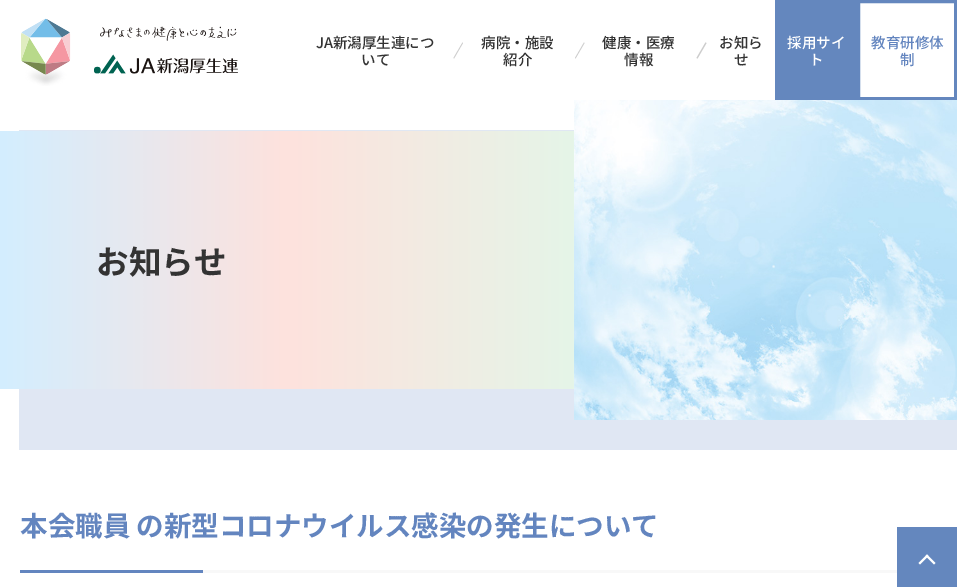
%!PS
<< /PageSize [957 587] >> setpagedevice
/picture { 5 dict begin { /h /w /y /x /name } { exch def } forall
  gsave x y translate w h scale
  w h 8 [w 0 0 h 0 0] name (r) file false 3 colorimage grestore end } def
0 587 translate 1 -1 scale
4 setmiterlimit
1 setgray
0 0 957 587 rectfill
(img1.rgb) 21 18 217 68 picture
/NotoSansJP-Medium [14.5 0 0 -14.5 0 0] selectfont
0.2 setgray
316 48 moveto (JA新潟厚生連につ) show
361 65 moveto (いて) show
0.8 setgray
newpath 453.5 58 moveto 462.5 42.5 lineto 463 43 lineto 454 58.5 lineto closepath fill
0.2 setgray
481 48 moveto (病院・施設) show
503 65 moveto (紹介) show
0.8 setgray
newpath 575 58 moveto 584 42.5 lineto 584.5 43 lineto 575.5 58.5 lineto closepath fill
0.2 setgray
602 48 moveto (健康・医療) show
624 65 moveto (情報) show
0.8 setgray
newpath 696.5 58 moveto 705.5 42.5 lineto 706.5 43 lineto 697.5 58.5 lineto closepath fill
0.2 setgray
719 48 moveto (お知ら) show
734 65 moveto (せ) show
0.392 0.529 0.745 setrgbcolor
775 0 82 100 rectfill
1 setgray
787 48 moveto (採用サイ) show
809 65 moveto (ト) show
0.392 0.529 0.745 setrgbcolor
3 setlinewidth
858.5 1.5 97 97 rectstroke
0.388 0.522 0.749 setrgbcolor
871 48 moveto (教育研修体) show
900 65 moveto (制) show
0.878 0.906 0.953 setrgbcolor
19 130 938 320 rectfill
gsave newpath 0 131 moveto 574 131 lineto 574 389 lineto 0 389 lineto closepath clip newpath
<< /ShadingType 2 /ColorSpace /DeviceRGB /Coords [0 260 574 260] /Extend [true true] /Function << /FunctionType 3 /Domain [0 1] /Functions [<< /FunctionType 2 /Domain [0 1] /C0 [0.827 0.933 1] /C1 [0.996 0.886 0.867] /N 1 >> << /FunctionType 2 /Domain [0 1] /C0 [0.996 0.886 0.867] /C1 [0.898 0.961 0.91] /N 1 >>] /Bounds [0.5] /Encode [0 1 0 1] >> >> shfill grestore
/NotoSansJP-Bold [32.5 0 0 -32.5 0 0] selectfont
0.2 setgray
96 274 moveto (お知らせ) show
(img2.rgb) 574 100 383 320 picture
0.973 setgray
203 570 694 3 rectfill
/NotoSansJP-Bold [27.5 0 0 -27.5 0 0] selectfont
0.388 0.522 0.749 setrgbcolor
20 536 moveto (本会職員 の新型コロナウイルス感染の発生について) show
20 570 183 3 rectfill
0.392 0.529 0.745 setrgbcolor
897 527 60 60 rectfill
1 setgray
newpath 927 554.5 moveto 935.5 563 lineto 934 564.5 lineto 925.5 556 lineto closepath fill
newpath 927 554.5 moveto 928.5 556 lineto 920 564.5 lineto 918.5 563 lineto closepath fill
showpage
